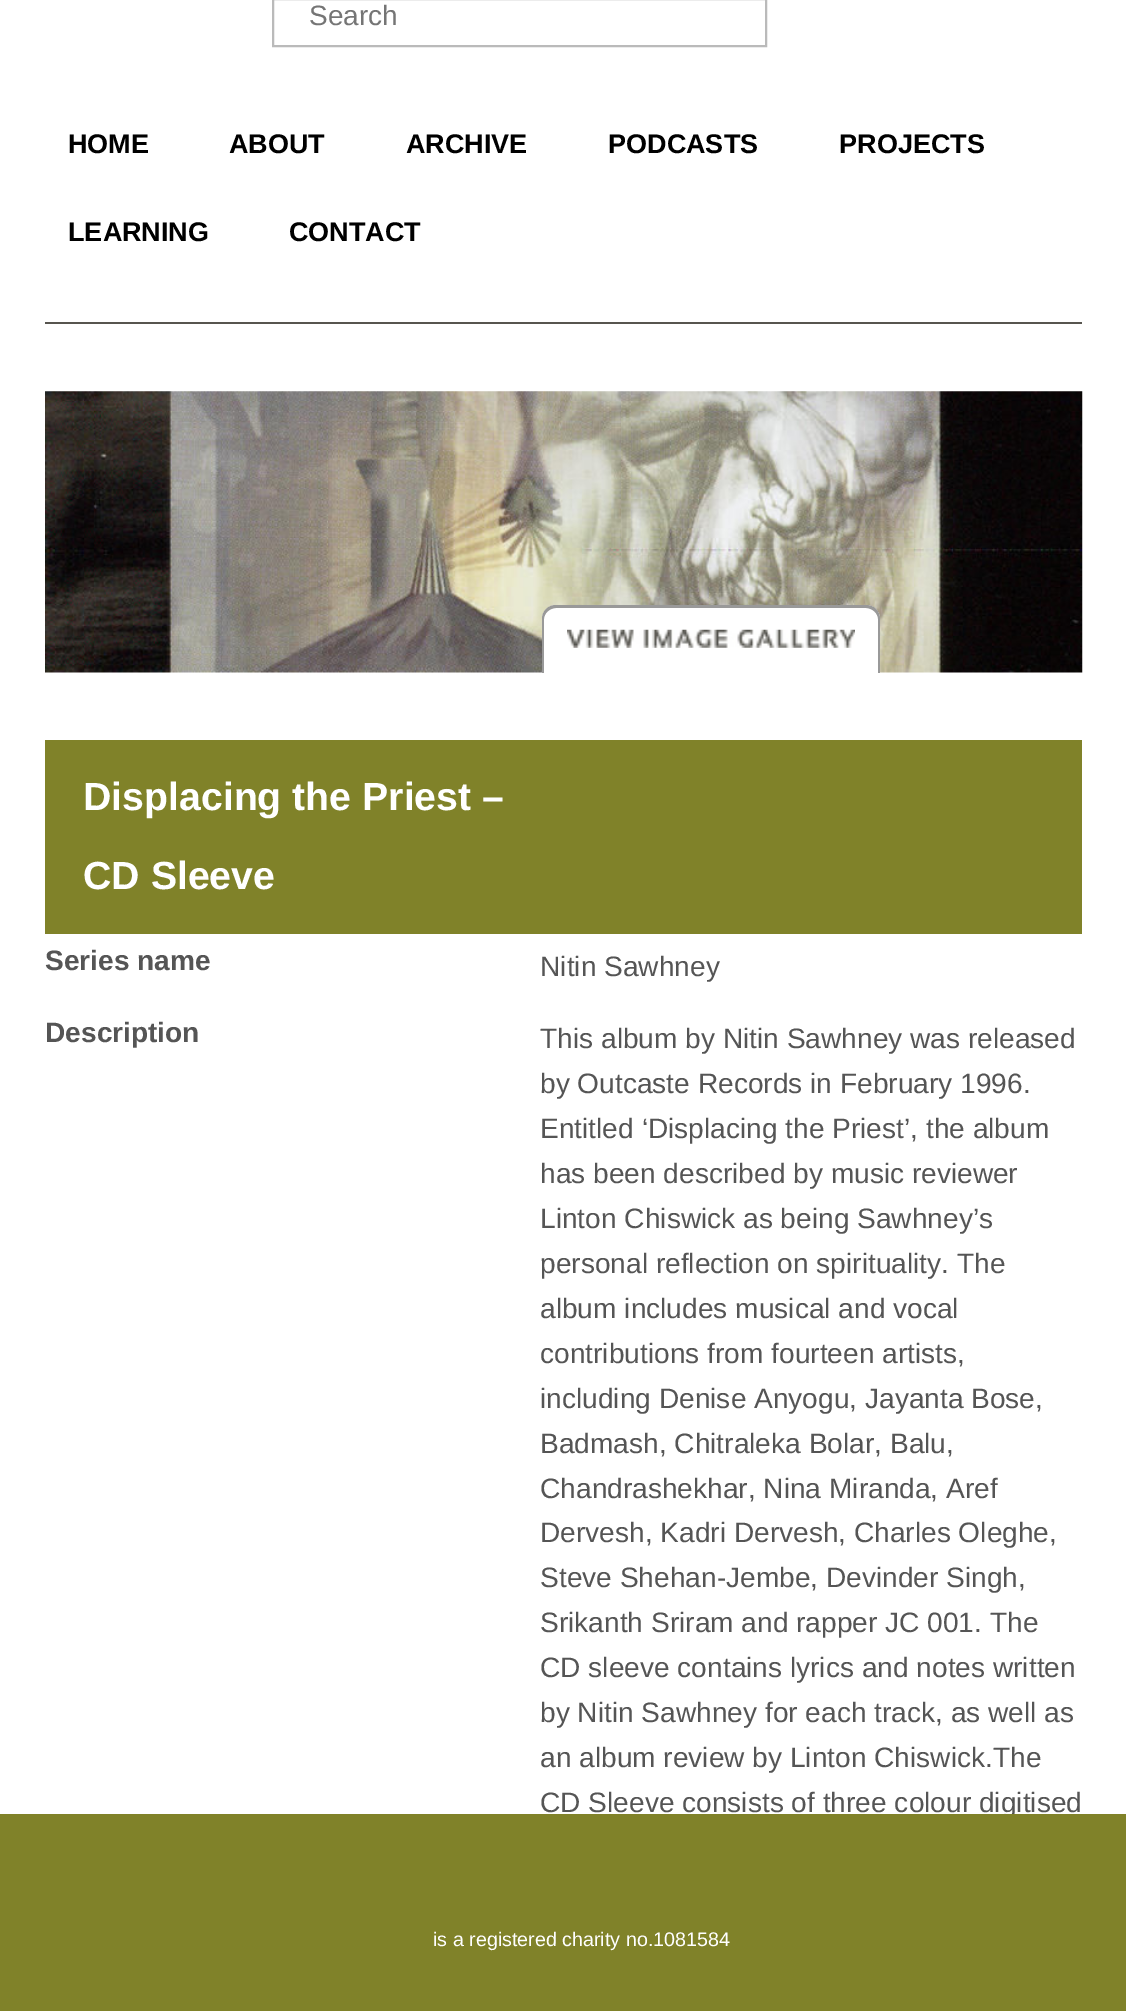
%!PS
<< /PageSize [1126 2011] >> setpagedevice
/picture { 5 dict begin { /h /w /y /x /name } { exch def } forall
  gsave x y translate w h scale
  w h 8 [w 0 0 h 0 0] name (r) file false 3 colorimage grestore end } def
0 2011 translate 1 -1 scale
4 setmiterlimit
1 setgray
0 0 1126 2011 rectfill
0.341 0.333 0.31 setrgbcolor
45 322 1037 2 rectfill
0.729 setgray
2 setlinewidth
273 -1 493 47 rectstroke
/LiberationSans-Regular [28 0 0 -28 0 0] selectfont
0.459 setgray
309 25 moveto (Search) show
/LiberationSans-Bold [27 0 0 -27 0 0] selectfont
0 setgray
68 153 moveto (HOME) show
229 153 moveto (ABOUT) show
406 153 moveto (ARCHIVE) show
608 153 moveto (PODCASTS) show
839 153 moveto (PROJECTS) show
68 241 moveto (LEARNING) show
289 241 moveto (CONTACT) show
(img1.rgb) 45 391 1038 282 picture
1 setgray
newpath 556 605 moveto 866 605 lineto 873.5 605 880 611.5 880 619 curveto 880 673 lineto 542 673 lineto 542 619 lineto 542 611.5 548.5 605 556 605 curveto closepath fill
0.6 setgray
newpath 556 605 moveto 866 605 lineto 874 605 880 611 880 619 curveto 880 673 lineto 542 673 lineto 542 619 lineto 542 611 548 605 556 605 curveto closepath 556 608 moveto 866 608 lineto 872 608 878 613 878 619 curveto 878 673 lineto 544 673 lineto 544 619 lineto 544 613 550 608 556 608 curveto closepath eofill
(img2.rgb) 567 629 288 19 picture
0.502 0.51 0.161 setrgbcolor
45 740 1037 194 rectfill
/LiberationSans-Bold [39.25 0 0 -39.25 0 0] selectfont
1 setgray
83 810 moveto (Displacing the Priest –) show
83 889 moveto (CD Sleeve) show
/LiberationSans-Bold [28.1 0 0 -28.1 0 0] selectfont
0.333 setgray
45 970 moveto (Series name) show
/LiberationSans-Regular [28.1 0 0 -28.1 0 0] selectfont
540 976 moveto (Nitin Sawhney) show
/LiberationSans-Bold [28.1 0 0 -28.1 0 0] selectfont
45 1042 moveto (Description) show
/LiberationSans-Regular [28.1 0 0 -28.1 0 0] selectfont
540 1048 moveto (This album by Nitin Sawhney was released) show
540 1093 moveto (by Outcaste Records in February 1996.) show
540 1138 moveto (Entitled ‘Displacing the Priest’, the album) show
540 1183 moveto (has been described by music reviewer) show
540 1228 moveto (Linton Chiswick as being Sawhney’s) show
540 1273 moveto (personal reflection on spirituality. The) show
540 1318 moveto (album includes musical and vocal) show
540 1363 moveto (contributions from fourteen artists,) show
540 1408 moveto (including Denise Anyogu, Jayanta Bose,) show
540 1453 moveto (Badmash, Chitraleka Bolar, Balu,) show
540 1498 moveto (Chandrashekhar, Nina Miranda, Aref) show
540 1542 moveto (Dervesh, Kadri Dervesh, Charles Oleghe,) show
540 1587 moveto (Steve Shehan-Jembe, Devinder Singh,) show
540 1632 moveto (Srikanth Sriram and rapper JC 001. The) show
540 1677 moveto (CD sleeve contains lyrics and notes written) show
540 1722 moveto (by Nitin Sawhney for each track, as well as) show
540 1767 moveto (an album review by Linton Chiswick.The) show
540 1812 moveto (CD Sleeve consists of three colour digitised) show
0.502 0.51 0.161 setrgbcolor
0 1814 1126 197 rectfill
/LiberationSans-Regular [19.7 0 0 -19.7 0 0] selectfont
1 setgray
433 1946 moveto (is a registered charity no.1081584) show
showpage
